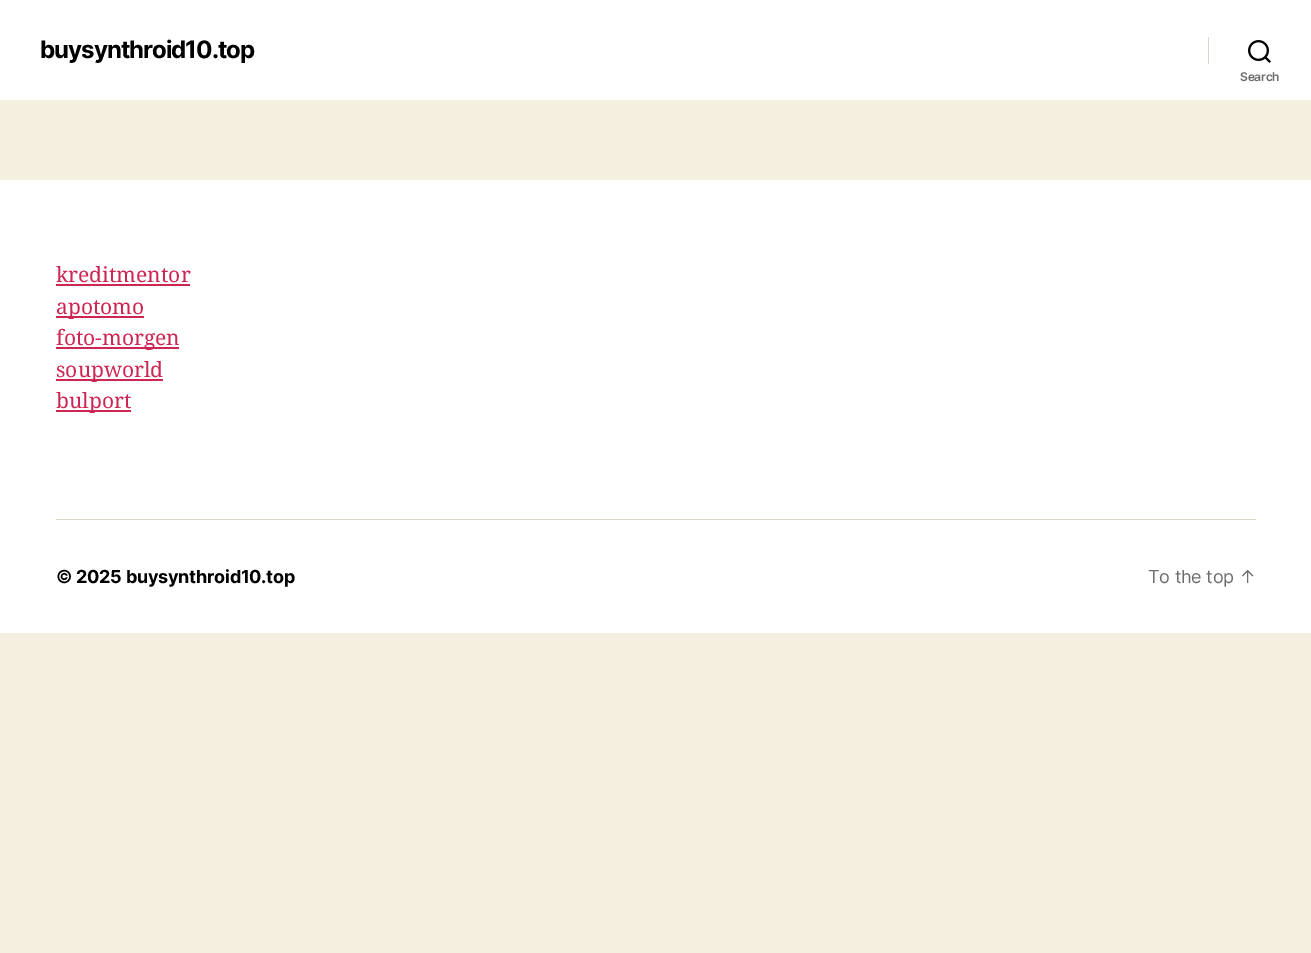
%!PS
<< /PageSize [1311 953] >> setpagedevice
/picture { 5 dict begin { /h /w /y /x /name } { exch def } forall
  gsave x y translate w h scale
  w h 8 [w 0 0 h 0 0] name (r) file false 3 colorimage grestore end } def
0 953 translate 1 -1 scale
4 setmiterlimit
0.961 0.937 0.878 setrgbcolor
0 0 1311 953 rectfill
1 setgray
0 0 1311 100 rectfill
/Inter-Bold [24 0 0 -24 0 0] selectfont
0 setgray
40 58 moveto -1 0 (buysynthroid10.top) ashow
0.863 0.843 0.792 setrgbcolor
1208 37 1 27 rectfill
(img1.rgb) 1248 40 23 23 picture
/Inter-SemiBold [12 0 0 -12 0 0] selectfont
0.427 setgray
1240 81 moveto -0.25 0 (Search) ashow
1 setgray
0 180 1311 453 rectfill
0.863 0.843 0.792 setrgbcolor
56 519 1200 1 rectfill
/NotoSerif-Regular [21 0 0 -21 0 0] selectfont
0.804 0.149 0.325 setrgbcolor
56 282 moveto (kreditmentor) show
56 284 134 2 rectfill
56 316 88 2 rectfill
56 314 moveto (apotomo) show
56 347 123 2 rectfill
56 345 moveto (foto-morgen) show
56 379 107 2 rectfill
56 377 moveto (soupworld) show
56 410 75 2 rectfill
56 408 moveto (bulport) show
/Inter-Bold [18 0 0 -18 0 0] selectfont
0 setgray
56 583 moveto -0.25 0 (© 2025 buysynthroid10.top) ashow
/Inter-Regular [18 0 0 -18 0 0] selectfont
0.427 setgray
1148 583 moveto -0.25 0 (To the top ↑) ashow
showpage
